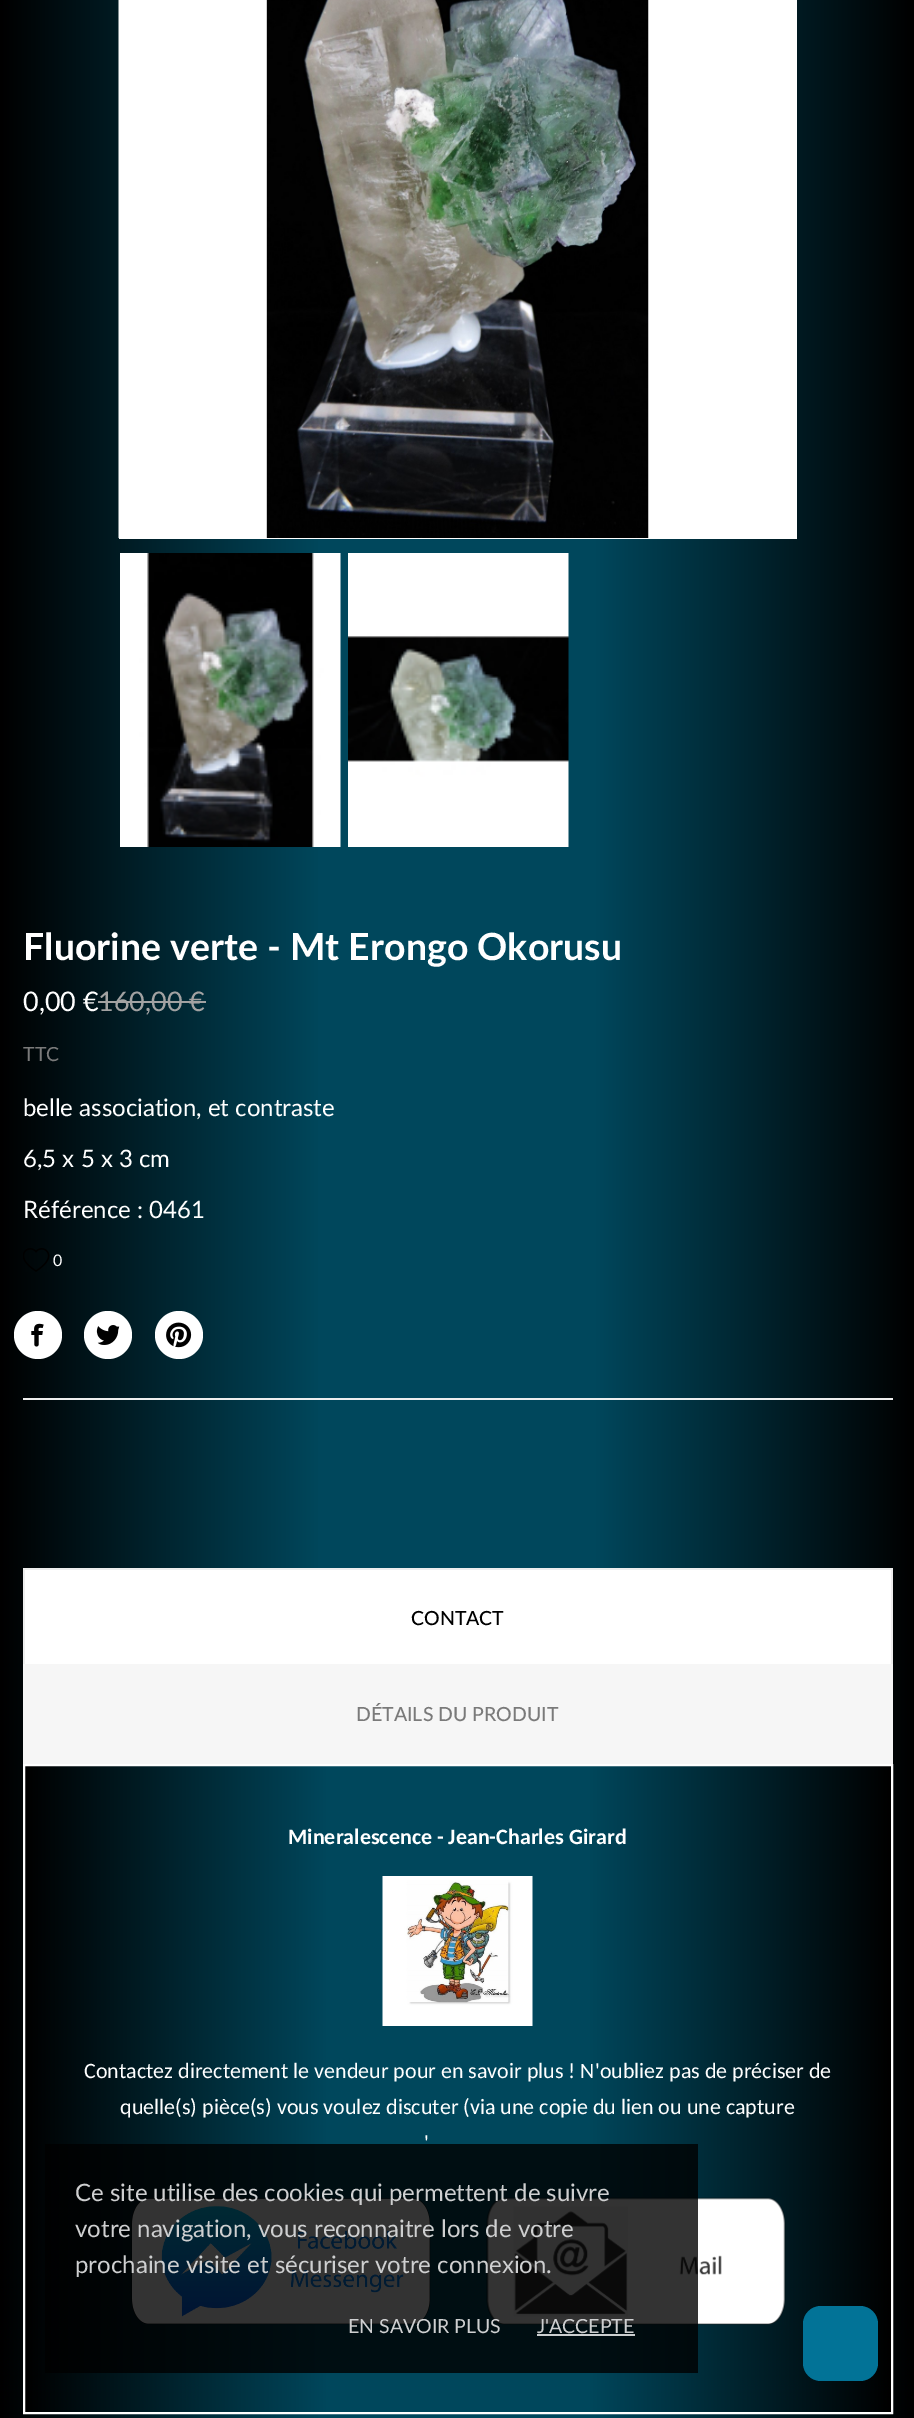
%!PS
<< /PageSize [914 2418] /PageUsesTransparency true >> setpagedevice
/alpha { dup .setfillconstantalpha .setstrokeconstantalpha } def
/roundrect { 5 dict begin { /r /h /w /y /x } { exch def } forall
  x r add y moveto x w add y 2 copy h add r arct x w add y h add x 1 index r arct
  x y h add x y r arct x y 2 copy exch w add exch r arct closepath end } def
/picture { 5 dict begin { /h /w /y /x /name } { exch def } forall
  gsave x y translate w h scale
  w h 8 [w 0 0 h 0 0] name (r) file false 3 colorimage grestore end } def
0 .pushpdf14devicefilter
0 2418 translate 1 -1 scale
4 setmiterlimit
1 setgray
0 0 914 2418 rectfill
gsave newpath 0 0 moveto 914 0 lineto 914 2418 lineto 0 2418 lineto closepath clip newpath
<< /ShadingType 2 /ColorSpace /DeviceRGB /Coords [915 683 0 683] /Extend [true true] /Function << /FunctionType 3 /Domain [0 1] /Functions [<< /FunctionType 2 /Domain [0 1] /C0 [0 0 0] /C1 [0 0.278 0.361] /N 1 >> << /FunctionType 2 /Domain [0 1] /C0 [0 0.278 0.361] /C1 [0 0.278 0.361] /N 1 >> << /FunctionType 2 /Domain [0 1] /C0 [0 0.278 0.361] /C1 [0 0 0] /N 1 >>] /Bounds [0.35 0.65] /Encode [0 1 0 1 0 1] >> >> shfill grestore
119 0 678 539 rectfill
(img1.rgb) 118 0 531 538 picture
(img2.rgb) 120 553 221 294 picture
(img3.rgb) 348 553 221 294 picture
/Lato-Bold [37.5 0 0 -37.5 0 0] selectfont
23 960 moveto (Fluorine verte - Mt Erongo Okorusu) show
/Lato-Regular [27 0 0 -27 0 0] selectfont
23 1011 moveto (0,00 €) show
0.635 setgray
98 1011 moveto (160,00 €) show
98 1001 108 2 rectfill
/Lato-Regular [19.5 0 0 -19.5 0 0] selectfont
0.478 setgray
23 1061 moveto (TTC) show
/Lato-Regular [24 0 0 -24 0 0] selectfont
1 setgray
23 1116 moveto (belle association, et contraste) show
23 1167 moveto (6,5 x 5 x 3 cm) show
23 1218 moveto (Référence : 0461) show
0.933 setgray
23 1398 870 2 rectfill
(img4.rgb) 23 1248 27 24 picture
/Lato-Regular [16 0 0 -16 0 0] selectfont
1 setgray
53 1266 moveto (0) show
newpath 38 1335 24 0 360 arc closepath fill
(img5.rgb) 31 1323 13 24 picture
newpath 108 1335 24 0 360 arc closepath fill
(img6.rgb) 96 1325 24 20 picture
newpath 179 1335 24 0 360 arc closepath fill
(img7.rgb) 166 1322 26 26 picture
25 1570 866 94 rectfill
0.933 setgray
23 1568 870 2 rectfill
891 1568 2 97 rectfill
23 1568 2 97 rectfill
/Lato-Medium [19.5 0 0 -19.5 0 0] selectfont
0 setgray
411 1625 moveto (CONTACT) show
0.965 setgray
23 1664 870 100 rectfill
0.478 setgray
356 1721 moveto (DÉTAILS DU PRODUIT) show
gsave newpath 25 1766 moveto 891 1766 lineto 891 2412 lineto 25 2412 lineto closepath clip newpath
<< /ShadingType 2 /ColorSpace /DeviceRGB /Coords [24 2089 891 2089] /Extend [true true] /Function << /FunctionType 3 /Domain [0 1] /Functions [<< /FunctionType 2 /Domain [0 1] /C0 [0 0 0] /C1 [0 0.278 0.361] /N 1 >> << /FunctionType 2 /Domain [0 1] /C0 [0 0.278 0.361] /C1 [0 0.278 0.361] /N 1 >> << /FunctionType 2 /Domain [0 1] /C0 [0 0.278 0.361] /C1 [0 0 0] /N 1 >>] /Bounds [0.35 0.65] /Encode [0 1 0 1 0 1] >> >> shfill grestore
1 setgray
2 setlinewidth
24 1765 868 648 rectstroke
/Carlito-Bold [22 0 0 -22 0 0] selectfont
288 1844 moveto (Mineralescence - Jean-Charles Girard) show
(img8.rgb) 382 1876 151 150 picture
/Carlito-Regular [22 0 0 -22 0 0] selectfont
84 2078 moveto (Contactez directement le vendeur pour en savoir plus ! N'oubliez pas de préciser de) show
120 2114 moveto (quelle\(s\) pièce\(s\) vous voulez discuter \(via une copie du lien ou une capture) show
424 2150 moveto (') show
(img9.rgb) 131 2198 300 127 picture
(img10.rgb) 486 2197 300 128 picture
0.008 0.451 0.592 setrgbcolor
803 2306 75 75 18 roundrect fill
0.8 alpha
0 setgray
45 2144 653 229 rectfill
/Lato-Regular [24 0 0 -24 0 0] selectfont
1 alpha
0.808 0.812 0.816 setrgbcolor
75 2201 moveto (Ce site utilise des cookies qui permettent de suivre) show
75 2237 moveto (votre navigation, vous reconnaitre lors de votre) show
75 2273 moveto (prochaine visite et sécuriser votre connexion.) show
/Lato-Regular [19.5 0 0 -19.5 0 0] selectfont
348 2333 moveto (EN SAVOIR PLUS) show
537 2333 moveto (J'ACCEPTE) show
0.8 alpha
1 setgray
537 2334 98 2 rectfill
.poppdf14devicefilter showpage
